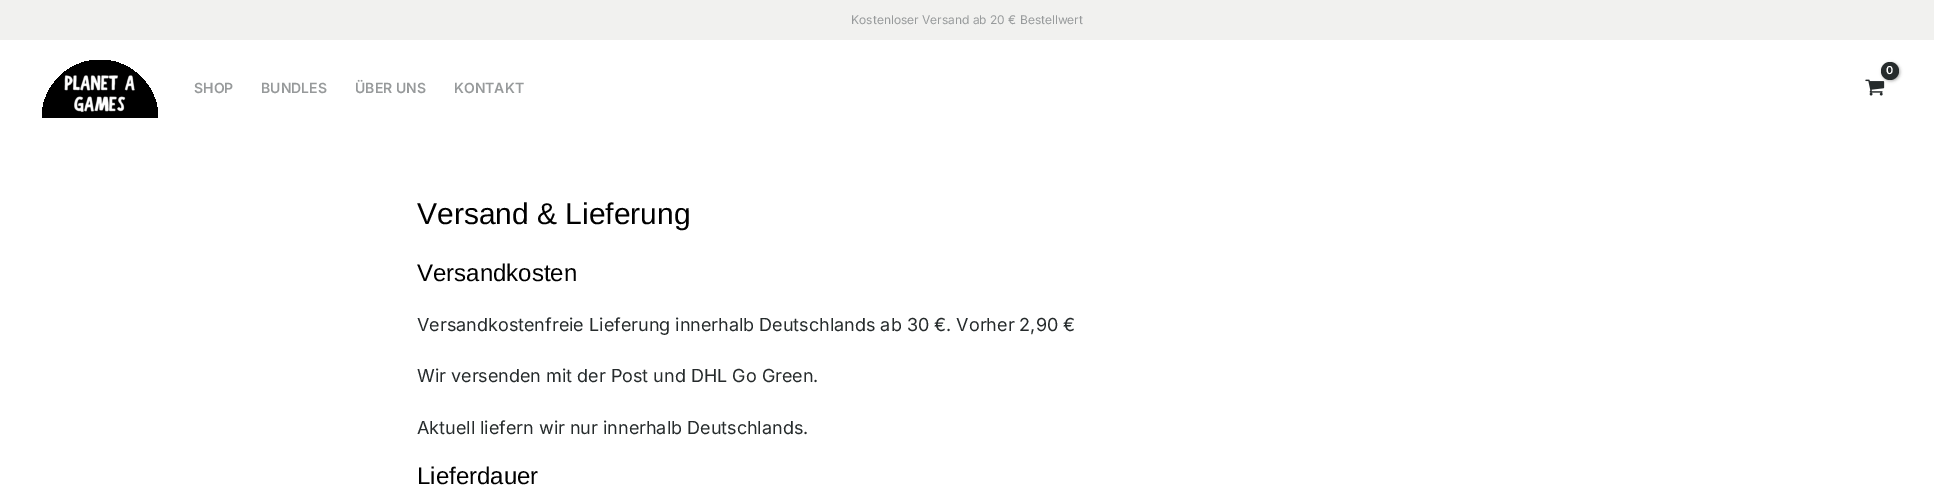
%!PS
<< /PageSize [1934 500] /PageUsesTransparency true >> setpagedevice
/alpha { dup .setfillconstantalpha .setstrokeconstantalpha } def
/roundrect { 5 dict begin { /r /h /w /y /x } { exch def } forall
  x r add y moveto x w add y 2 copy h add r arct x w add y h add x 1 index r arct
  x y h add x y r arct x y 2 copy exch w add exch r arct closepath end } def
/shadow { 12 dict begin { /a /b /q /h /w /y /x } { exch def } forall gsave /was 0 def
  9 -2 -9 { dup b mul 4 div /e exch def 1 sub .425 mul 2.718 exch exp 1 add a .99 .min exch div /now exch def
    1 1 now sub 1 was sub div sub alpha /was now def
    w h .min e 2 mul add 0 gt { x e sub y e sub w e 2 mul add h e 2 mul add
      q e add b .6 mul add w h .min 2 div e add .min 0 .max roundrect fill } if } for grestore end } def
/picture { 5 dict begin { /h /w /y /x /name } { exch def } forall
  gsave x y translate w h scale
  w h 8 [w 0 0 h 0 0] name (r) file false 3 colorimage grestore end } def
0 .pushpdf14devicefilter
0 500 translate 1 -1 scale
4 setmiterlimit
1 setgray
0 0 1934 500 rectfill
0.945 0.945 0.937 setrgbcolor
0 0 1934 40 rectfill
/Inter-Regular [12 0 0 -12 0 0] selectfont
0.592 0.604 0.608 setrgbcolor
851 24 moveto (Kostenloser Versand ab 20 € Bestellwert) show
(img1.rgb) 1865 79 20 17 picture
0 setgray
1882 63 18 18 9 1.5 0.3 shadow
0.149 0.169 0.173 setrgbcolor
newpath 1890 71 9 0 360 arc closepath fill
/Inter-SemiBold [11 0 0 -11 0 0] selectfont
1 setgray
1886 74 moveto (0) show
(img2.rgb) 42 60 116 58 picture
/Inter-SemiBold [14 0 0 -14 0 0] selectfont
0.592 0.604 0.608 setrgbcolor
194 93 moveto (SHOP) show
261 93 moveto (BUNDLES) show
355 93 moveto (ÜBER UNS) show
454 93 moveto (KONTAKT) show
/LiberationSans-Regular [30 0 0 -30 0 0] selectfont
0 setgray
417 224 moveto (Versand & Lieferung) show
/LiberationSans-Regular [24 0 0 -24 0 0] selectfont
417 281 moveto (Versandkosten) show
/Inter-Regular [18 0 0 -18 0 0] selectfont
0.149 0.169 0.173 setrgbcolor
417 331 moveto (Versandkostenfreie Lieferung innerhalb Deutschlands ab 30 €. Vorher 2,90 €) show
417 382 moveto (Wir versenden mit der Post und DHL Go Green.) show
417 434 moveto (Aktuell liefern wir nur innerhalb Deutschlands.) show
/LiberationSans-Regular [24 0 0 -24 0 0] selectfont
0 setgray
417 484 moveto (Lieferdauer) show
.poppdf14devicefilter showpage
